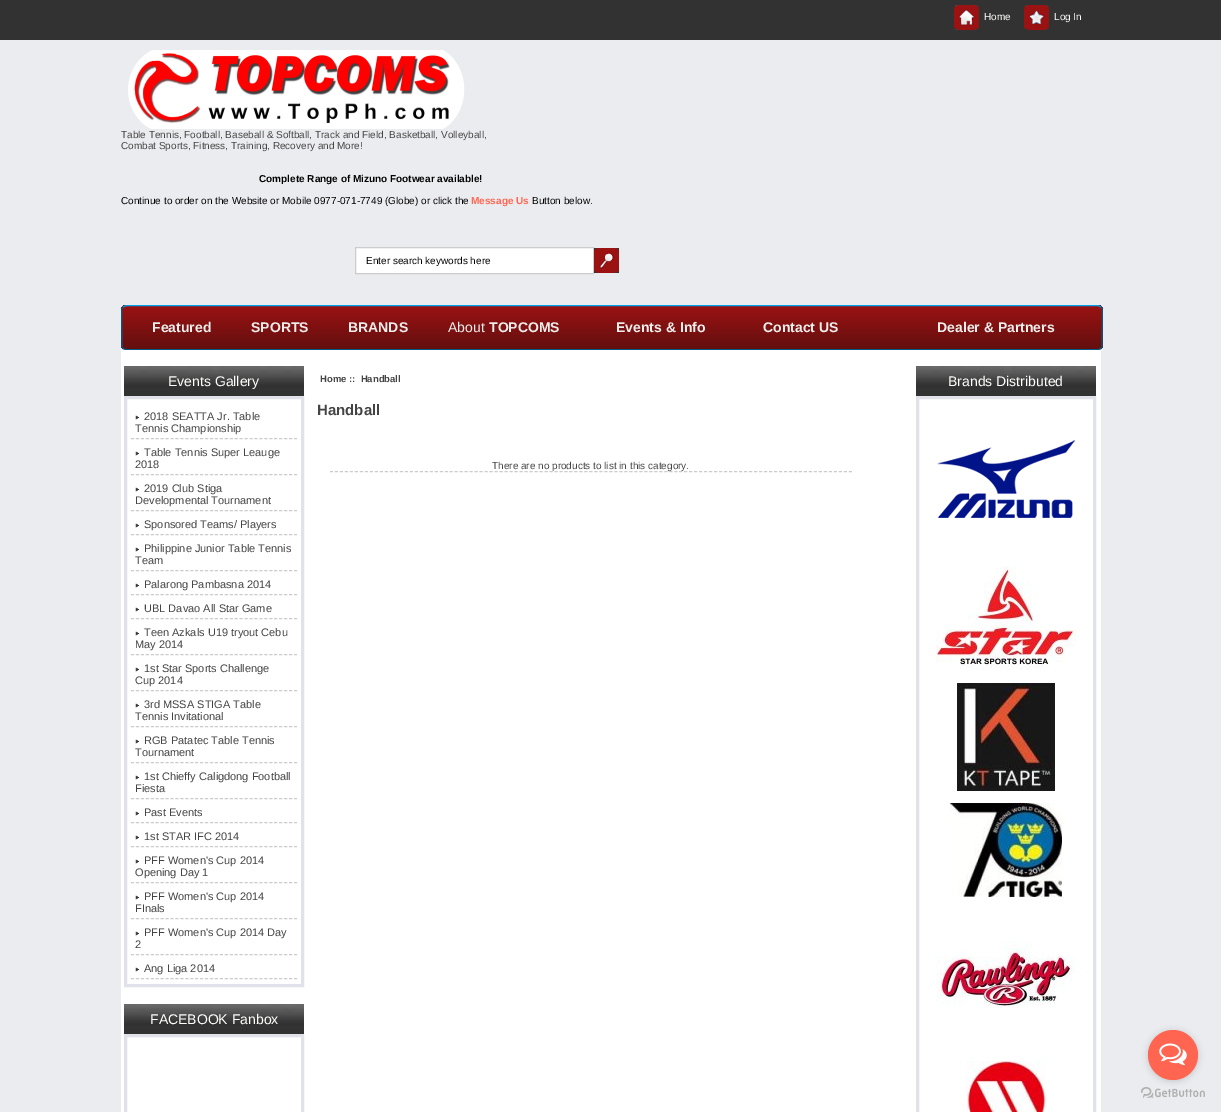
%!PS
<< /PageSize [1221 1112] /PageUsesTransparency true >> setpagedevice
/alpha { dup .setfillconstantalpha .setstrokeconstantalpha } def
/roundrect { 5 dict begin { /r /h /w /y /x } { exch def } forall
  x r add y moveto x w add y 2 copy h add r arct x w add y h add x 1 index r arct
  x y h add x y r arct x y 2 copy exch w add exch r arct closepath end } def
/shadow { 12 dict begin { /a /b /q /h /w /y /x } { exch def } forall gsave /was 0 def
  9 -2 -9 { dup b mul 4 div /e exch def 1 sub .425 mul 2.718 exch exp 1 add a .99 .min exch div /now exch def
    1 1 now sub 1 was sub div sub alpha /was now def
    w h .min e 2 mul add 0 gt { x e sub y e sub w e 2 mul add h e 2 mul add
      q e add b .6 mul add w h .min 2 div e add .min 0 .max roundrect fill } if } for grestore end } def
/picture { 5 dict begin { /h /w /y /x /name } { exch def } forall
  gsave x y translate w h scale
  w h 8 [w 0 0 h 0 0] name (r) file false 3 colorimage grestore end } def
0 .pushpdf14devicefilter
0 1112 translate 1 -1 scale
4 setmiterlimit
0.922 0.925 0.941 setrgbcolor
0 0 1221 1112 rectfill
0.196 setgray
0 0 1221 40 rectfill
(img1.rgb) 954 5 25 25 picture
/LiberationSans-Regular [10 0 0 -10 0 0] selectfont
1 1 0.992 setrgbcolor
984 20 moveto (Home) show
(img2.rgb) 1024 5 25 25 picture
1054 20 moveto (Log In) show
(img3.rgb) 128 50 337 79 picture
0.267 setgray
121 138 moveto (Table Tennis, Football, Baseball & Softball, Track and Field, Basketball, Volleyball,) show
121 149 moveto (Combat Sports, Fitness, Training, Recovery and More!) show
/LiberationSans-Bold [10 0 0 -10 0 0] selectfont
0 setgray
259 182 moveto (Complete Range of Mizuno Footwear available!) show
/LiberationSans-Regular [10 0 0 -10 0 0] selectfont
121 204 moveto (Continue to order on the Website or Mobile 0977-071-7749 \(Globe\) or click the) show
/LiberationSans-Bold [10 0 0 -10 0 0] selectfont
1 0.396 0.314 setrgbcolor
471 204 moveto (Message Us) show
/LiberationSans-Regular [10 0 0 -10 0 0] selectfont
0 setgray
532 204 moveto (Button below.) show
1 setgray
newpath 355.5 247.5 moveto 593.5 247.5 lineto 593.5 273.5 lineto 355.5 273.5 lineto closepath gsave fill grestore
0.8 setgray
stroke
0 setgray
366 264 moveto (Enter search keywords here) show
(img4.rgb) 594 248 25 25 picture
gsave
121 305 982 45 5 roundrect clip newpath
gsave newpath 121 305 moveto 1103 305 lineto 1103 306 lineto 121 306 lineto closepath clip newpath
<< /ShadingType 2 /ColorSpace /DeviceRGB /Coords [122 263 122 306] /Extend [true true] /Function << /FunctionType 2 /Domain [0 1] /C0 [0.604 0.071 0.071] /C1 [0.392 0.059 0.059] /N 1 >> >> shfill grestore
gsave newpath 121 306 moveto 1103 306 lineto 1103 349 lineto 121 349 lineto closepath clip newpath
<< /ShadingType 2 /ColorSpace /DeviceRGB /Coords [122 306 122 349] /Extend [true true] /Function << /FunctionType 2 /Domain [0 1] /C0 [0.604 0.071 0.071] /C1 [0.392 0.059 0.059] /N 1 >> >> shfill grestore
grestore
0.008 0.624 0.922 setrgbcolor
newpath 123 307 moveto 126 305.5 lineto 1098 305.5 lineto 1101 307 lineto stroke
0.004 0.357 0.525 setrgbcolor
newpath 1101 307 moveto 1102.5 309 lineto 1102 346.5 lineto 1101.5 348.5 1100 349.5 1098 349.5 curveto 126 349.5 lineto 124 349.5 122.5 348.5 122 346.5 curveto 121.5 309 lineto 123 307 lineto stroke
/LiberationSans-Bold [14 0 0 -14 0 0] selectfont
0.933 0.933 0.929 setrgbcolor
152 332 moveto (Featured) show
251 332 moveto (SPORTS) show
348 332 moveto (BRANDS) show
/LiberationSans-Regular [14 0 0 -14 0 0] selectfont
448 332 moveto (About) show
/LiberationSans-Bold [14 0 0 -14 0 0] selectfont
489 332 moveto (TOPCOMS) show
616 332 moveto (Events & Info) show
763 332 moveto (Contact US) show
937 332 moveto (Dealer & Partners) show
1 setgray
121 350 980 762 rectfill
(img5.rgb) 124 366 180 30 picture
/LiberationSans-Regular [14 0 0 -14 0 0] selectfont
1 1 0.992 setrgbcolor
168 386 moveto (Events Gallery) show
0.882 0.882 0.914 setrgbcolor
3 setlinewidth
125.5 397.5 177 588 rectstroke
0.8 setgray
1 setlinewidth
[3 1.94] 0 setdash
newpath 131 438.5 moveto 297 438.5 lineto stroke
(img6.rgb) 135 415 4 5 picture
/LiberationSans-Regular [11 0 0 -11 0 0] selectfont
0.267 setgray
144 420 moveto (2018 SEATTA Jr. Table) show
135 432 moveto (Tennis Championship) show
0.8 setgray
newpath 131 474.5 moveto 297 474.5 lineto stroke
(img6.rgb) 135 451 4 5 picture
0.267 setgray
144 456 moveto (Table Tennis Super Leauge) show
135 468 moveto (2018) show
0.8 setgray
newpath 131 510.5 moveto 297 510.5 lineto stroke
(img6.rgb) 135 487 4 5 picture
0.267 setgray
144 492 moveto (2019 Club Stiga) show
135 504 moveto (Developmental Tournament) show
0.8 setgray
newpath 131 534.5 moveto 297 534.5 lineto stroke
(img6.rgb) 135 523 4 5 picture
0.267 setgray
144 528 moveto (Sponsored Teams/ Players) show
0.8 setgray
newpath 131 570.5 moveto 297 570.5 lineto stroke
(img6.rgb) 135 547 4 5 picture
0.267 setgray
144 552 moveto (Philippine Junior Table Tennis) show
135 564 moveto (Team) show
0.8 setgray
newpath 131 594.5 moveto 297 594.5 lineto stroke
(img6.rgb) 135 583 4 5 picture
0.267 setgray
144 588 moveto (Palarong Pambasna 2014) show
0.8 setgray
newpath 131 618.5 moveto 297 618.5 lineto stroke
(img6.rgb) 135 607 4 5 picture
0.267 setgray
144 612 moveto (UBL Davao All Star Game) show
0.8 setgray
newpath 131 654.5 moveto 297 654.5 lineto stroke
(img6.rgb) 135 631 4 5 picture
0.267 setgray
144 636 moveto (Teen Azkals U19 tryout Cebu) show
135 648 moveto (May 2014) show
0.8 setgray
newpath 131 690.5 moveto 297 690.5 lineto stroke
(img6.rgb) 135 667 4 5 picture
0.267 setgray
144 672 moveto (1st Star Sports Challenge) show
135 684 moveto (Cup 2014) show
0.8 setgray
newpath 131 726.5 moveto 297 726.5 lineto stroke
(img6.rgb) 135 703 4 5 picture
0.267 setgray
144 708 moveto (3rd MSSA STIGA Table) show
135 720 moveto (Tennis Invitational) show
0.8 setgray
newpath 131 762.5 moveto 297 762.5 lineto stroke
(img6.rgb) 135 739 4 5 picture
0.267 setgray
144 744 moveto (RGB Patatec Table Tennis) show
135 756 moveto (Tournament) show
0.8 setgray
newpath 131 798.5 moveto 297 798.5 lineto stroke
(img6.rgb) 135 775 4 5 picture
0.267 setgray
144 780 moveto (1st Chieffy Caligdong Football) show
135 792 moveto (Fiesta) show
0.8 setgray
newpath 131 822.5 moveto 297 822.5 lineto stroke
(img6.rgb) 135 811 4 5 picture
0.267 setgray
144 816 moveto (Past Events) show
0.8 setgray
newpath 131 846.5 moveto 297 846.5 lineto stroke
(img6.rgb) 135 835 4 5 picture
0.267 setgray
144 840 moveto (1st STAR IFC 2014) show
0.8 setgray
newpath 131 882.5 moveto 297 882.5 lineto stroke
(img6.rgb) 135 859 4 5 picture
0.267 setgray
144 864 moveto (PFF Women's Cup 2014) show
135 876 moveto (Opening Day 1) show
0.8 setgray
newpath 131 918.5 moveto 297 918.5 lineto stroke
(img6.rgb) 135 895 4 5 picture
0.267 setgray
144 900 moveto (PFF Women's Cup 2014) show
135 912 moveto (FInals) show
0.8 setgray
newpath 131 954.5 moveto 297 954.5 lineto stroke
(img6.rgb) 135 931 4 5 picture
0.267 setgray
144 936 moveto (PFF Women's Cup 2014 Day) show
135 948 moveto (2) show
0.8 setgray
newpath 131 978.5 moveto 297 978.5 lineto stroke
(img6.rgb) 135 967 4 5 picture
0.267 setgray
144 972 moveto (Ang Liga 2014) show
(img5.rgb) 124 1004 180 30 picture
/LiberationSans-Regular [14 0 0 -14 0 0] selectfont
1 1 0.992 setrgbcolor
150 1024 moveto (FACEBOOK Fanbox) show
0.882 0.882 0.914 setrgbcolor
3 setlinewidth
[] 0 setdash
125.5 1035.5 177 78 rectstroke
/LiberationSans-Bold [9.5 0 0 -9.5 0 0] selectfont
0.267 setgray
320 382 moveto (Home) show
349 382 moveto (::  Handball) show
/LiberationSans-Bold [15 0 0 -15 0 0] selectfont
317 415 moveto (Handball) show
0.8 setgray
1 setlinewidth
[3 1.99] 0 setdash
newpath 330 471.5 moveto 852 471.5 lineto stroke
/LiberationSans-Regular [10 0 0 -10 0 0] selectfont
0.267 setgray
492 469 moveto (There are no products to list in this category.) show
(img5.rgb) 916 366 180 30 picture
/LiberationSans-Regular [14 0 0 -14 0 0] selectfont
1 1 0.992 setrgbcolor
948 386 moveto (Brands Distributed) show
0.882 0.882 0.914 setrgbcolor
3 setlinewidth
[] 0 setdash
917.5 397.5 177 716 rectstroke
(img7.rgb) 937 440 138 78 picture
(img8.rgb) 936 566 140 104 picture
(img9.rgb) 957 683 98 108 picture
(img10.rgb) 950 803 112 94 picture
(img11.rgb) 936 941 140 67 picture
(img12.rgb) 966 1061 80 51 picture
(img14.rgb) 1141 1087 64 11 picture
0.533 setgray
1148 1031 50 50 25 3.5 0.4 shadow
1 0.396 0.314 setrgbcolor
newpath 1173 1055 25 0 360 arc closepath fill
(img13.rgb) 1159 1043 28 23 picture
.poppdf14devicefilter showpage
